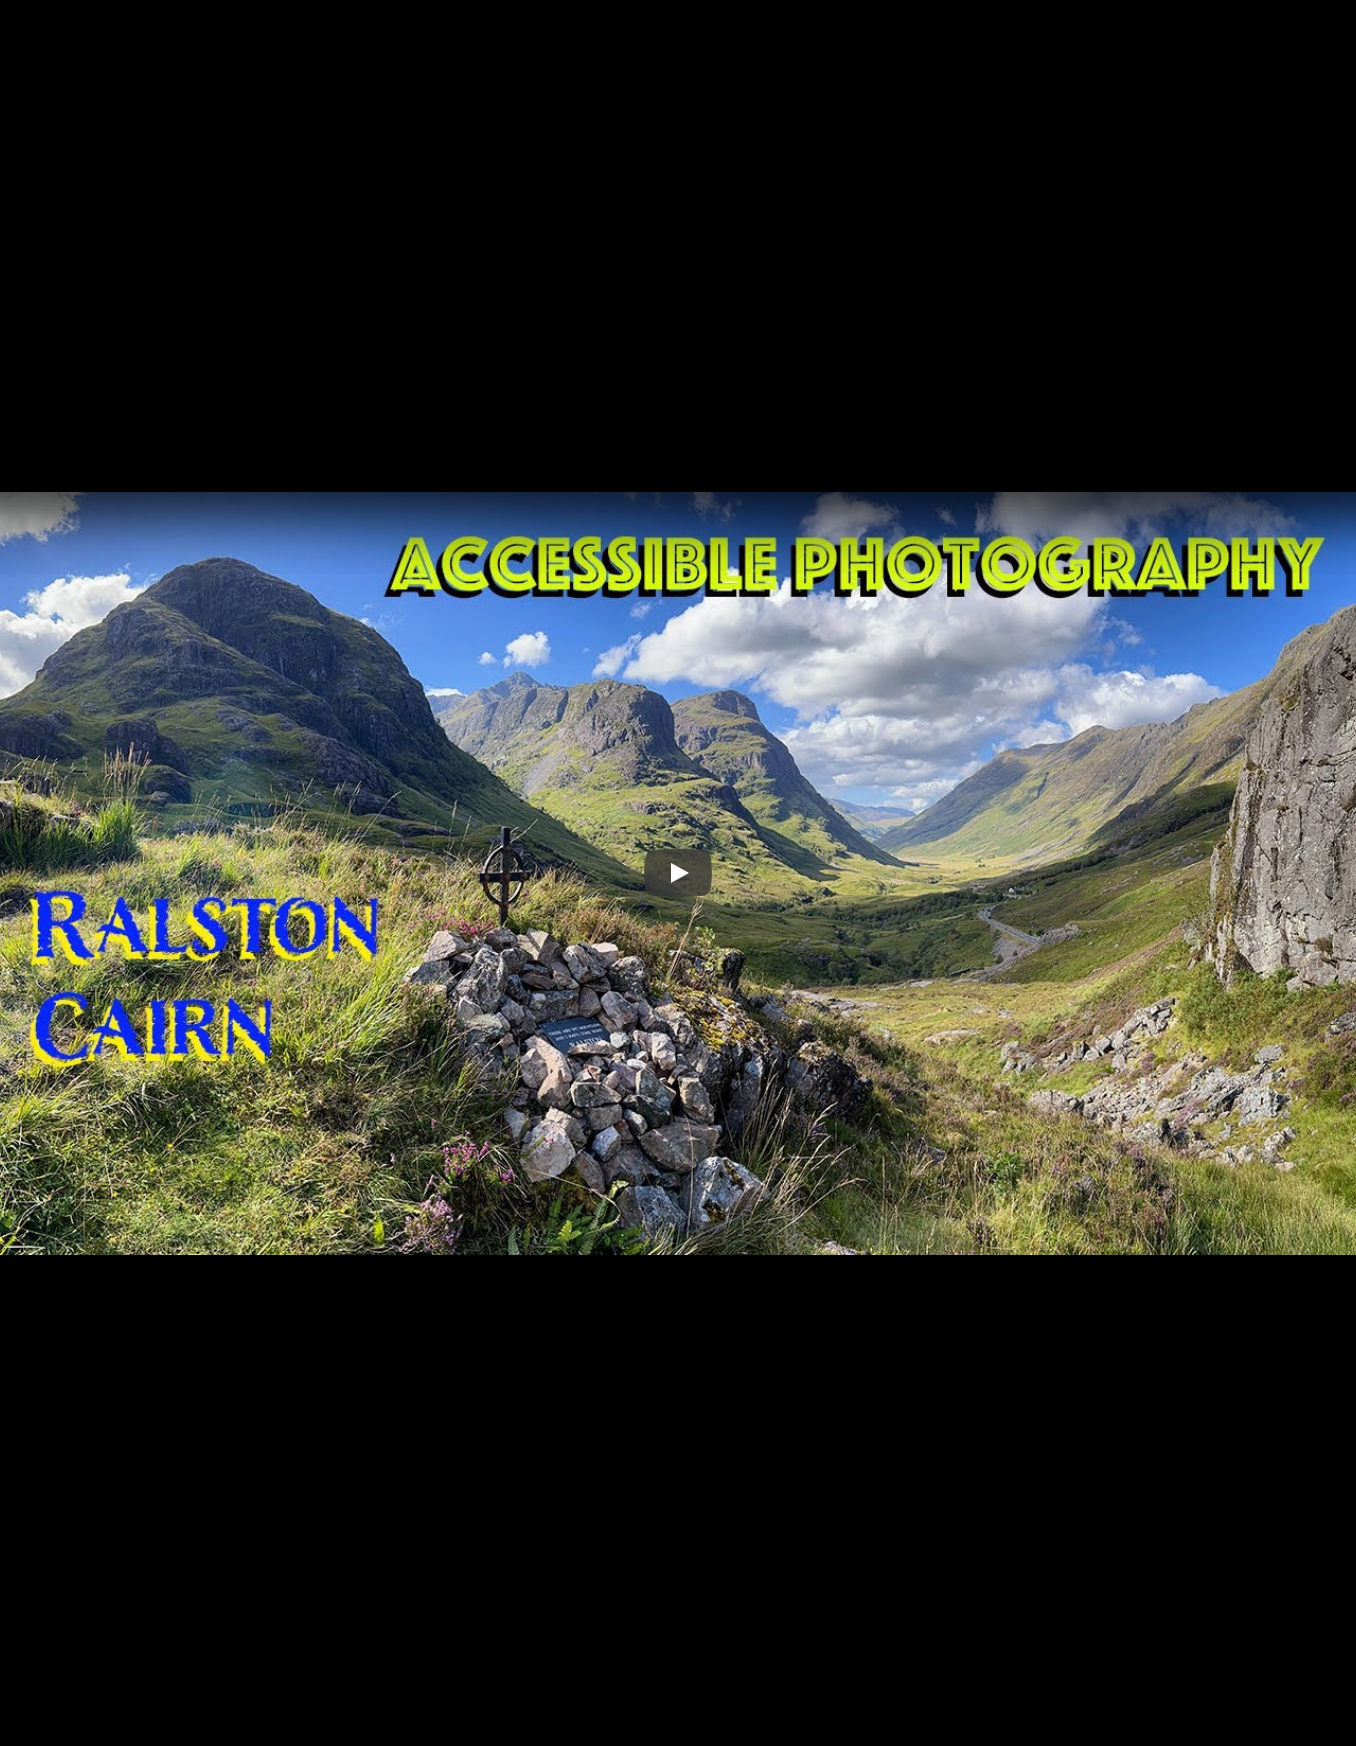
%!PS
<< /PageSize [1356 1746] >> setpagedevice
/picture { 5 dict begin { /h /w /y /x /name } { exch def } forall
  gsave x y translate w h scale
  w h 8 [w 0 0 h 0 0] name (r) file false 3 colorimage grestore end } def
0 1746 translate 1 -1 scale
4 setmiterlimit
0 setgray
0 0 1356 1746 rectfill
(img1.rgb) 0 492 1356 763 picture
(img2.rgb) 0 492 1356 82 picture
(img3.rgb) 644 849 68 48 picture
showpage
